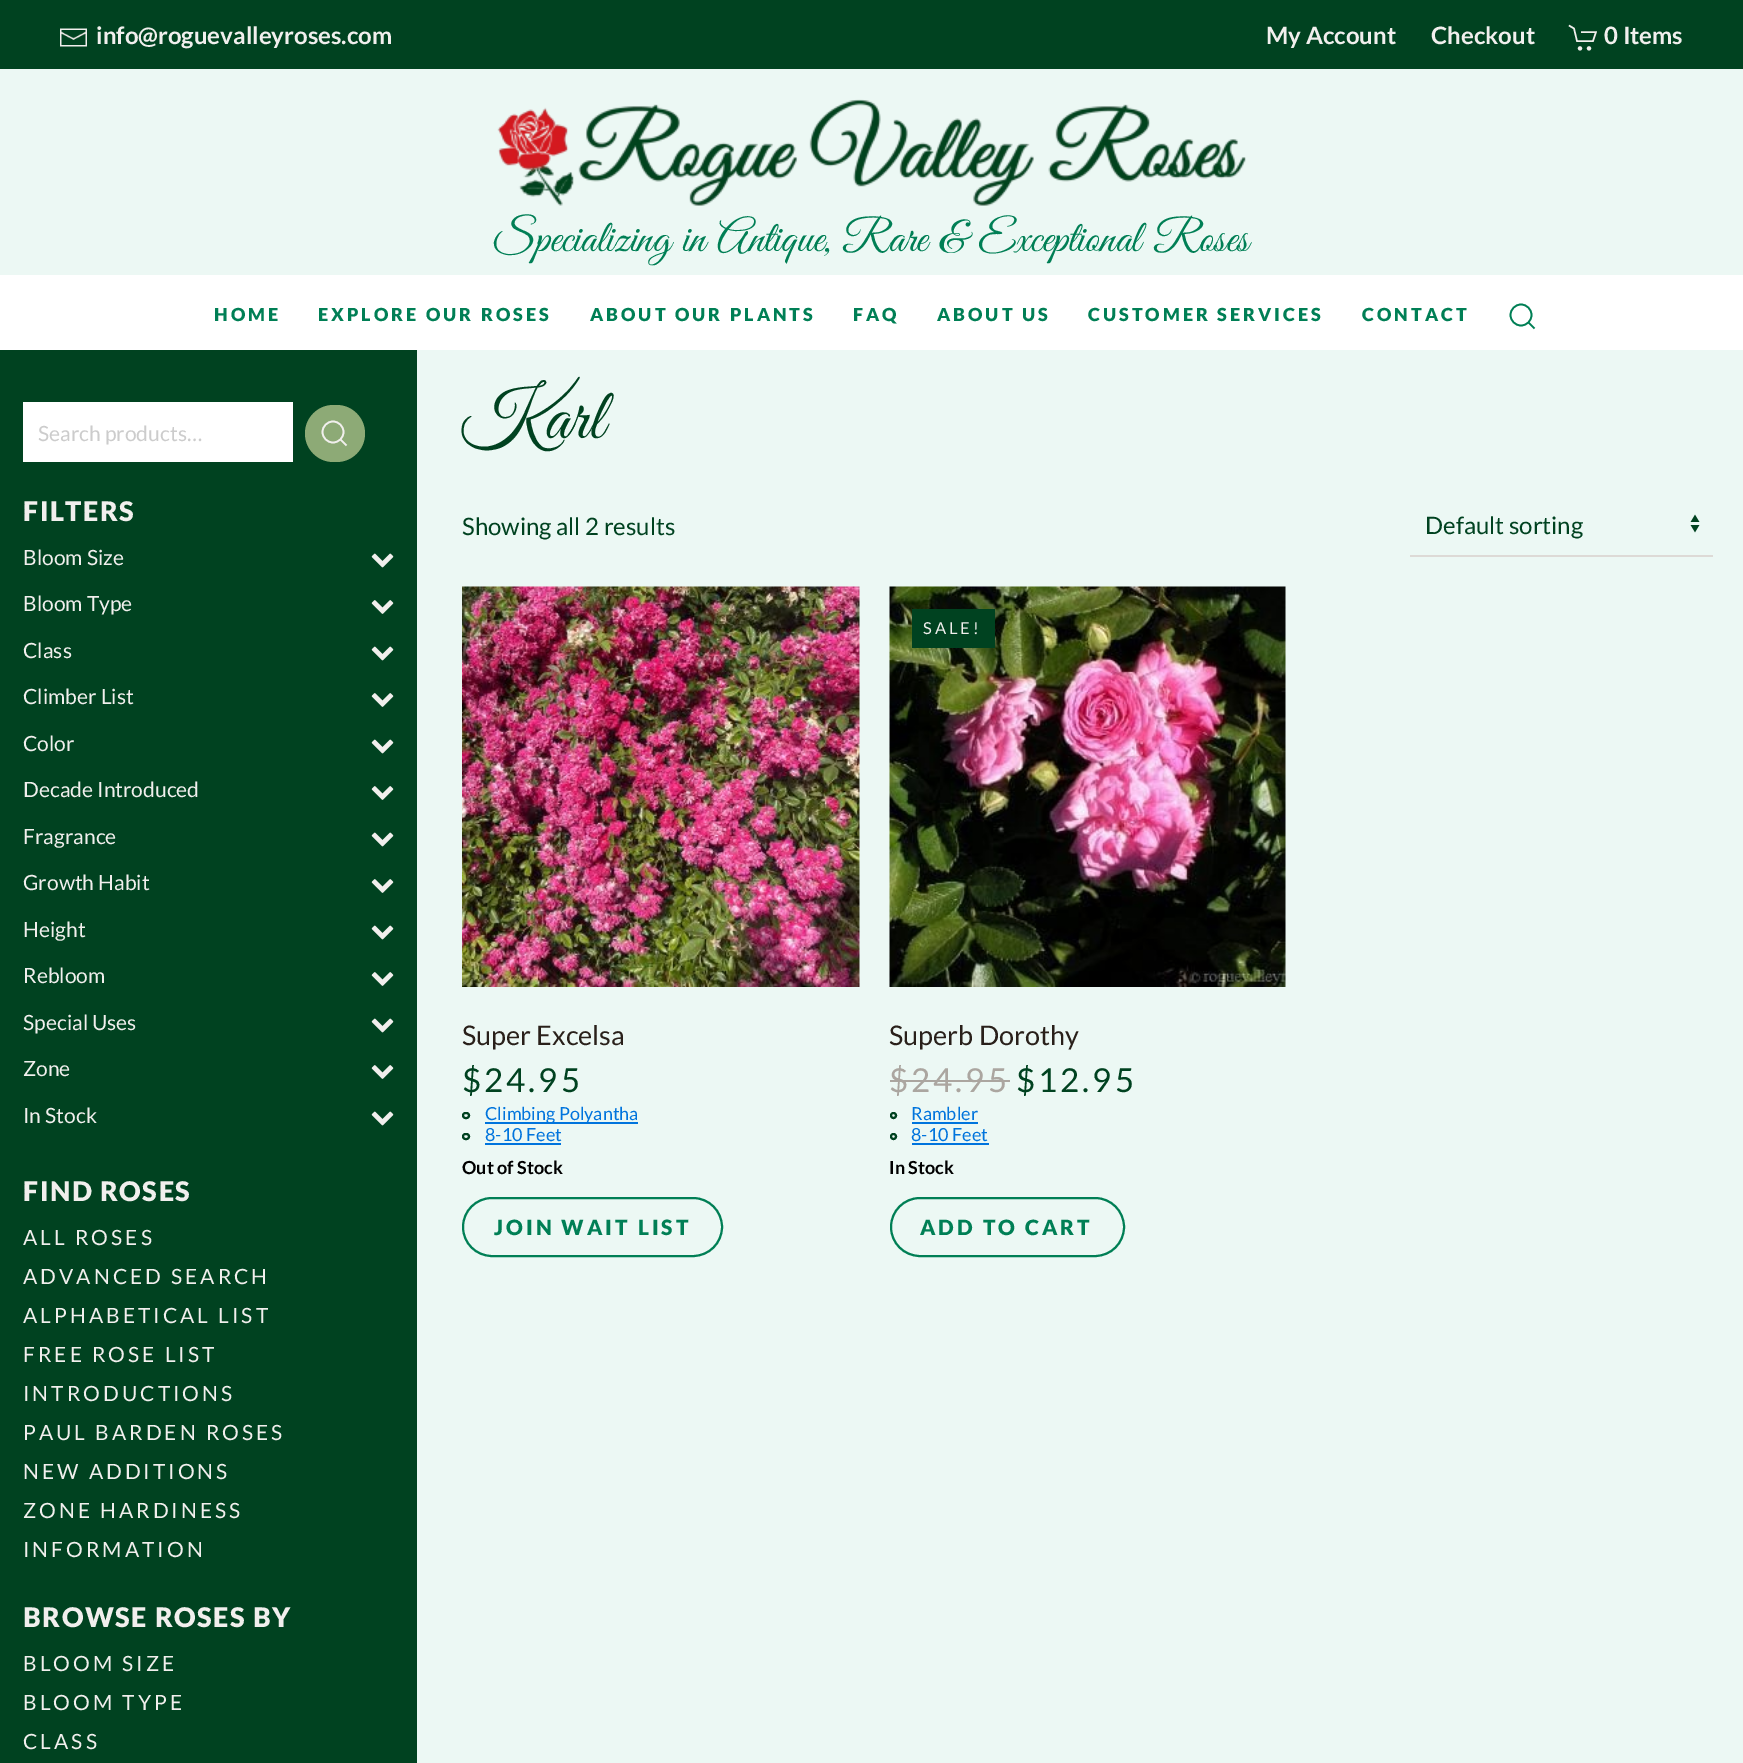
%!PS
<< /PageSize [1743 1763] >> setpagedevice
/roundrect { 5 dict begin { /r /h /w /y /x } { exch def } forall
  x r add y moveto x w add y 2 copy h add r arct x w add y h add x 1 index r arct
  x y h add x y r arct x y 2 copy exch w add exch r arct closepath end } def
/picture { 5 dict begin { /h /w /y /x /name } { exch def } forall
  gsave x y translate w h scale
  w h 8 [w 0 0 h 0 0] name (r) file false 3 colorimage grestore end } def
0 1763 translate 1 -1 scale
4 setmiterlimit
0.925 0.973 0.957 setrgbcolor
0 0 1743 1763 rectfill
0 0.259 0.125 setrgbcolor
0 0 1743 69 rectfill
(img1.rgb) 60 28 27 19 picture
/Lato-Bold [24 0 0 -24 0 0] selectfont
0.945 0.937 0.929 setrgbcolor
96 44 moveto (info@roguevalleyroses.com) show
1266 44 moveto (My Account) show
1431 44 moveto (Checkout) show
1.5 setlinewidth
newpath 1569 25.5 moveto 1574 28.5 lineto 1577 41 lineto 1593 41 lineto 1596 32 lineto 1581 32 lineto stroke
newpath 1580 48.4 2.1 0 360 arc closepath fill
newpath 1589 48.4 2.1 0 360 arc closepath fill
1604 44 moveto (0 Items) show
(img2.rgb) 497 99 749 107 picture
/GreatVibes-Regular [45 0 0 -45 0 0] selectfont
0 0.498 0.333 setrgbcolor
494 251 moveto (Specializing in Antique, Rare & Exceptional Roses) show
1 setgray
0 275 1743 75 rectfill
/Lato-Black [18 0 0 -18 0 0] selectfont
0 0.498 0.333 setrgbcolor
214 321 moveto 3 0 (HOME) ashow
318 321 moveto 3 0 (EXPLORE OUR ROSES) ashow
590 321 moveto 3 0 (ABOUT OUR PLANTS) ashow
853 321 moveto 3 0 (FAQ) ashow
937 321 moveto 3 0 (ABOUT US) ashow
1088 321 moveto 3 0 (CUSTOMER SERVICES) ashow
1362 321 moveto 3 0 (CONTACT) ashow
1.7 setlinewidth
newpath 1521 315 10.5 0 360 arc closepath stroke
newpath 1528.5 322.5 moveto 1534.5 328.5 lineto closepath stroke
0 0.259 0.125 setrgbcolor
0 350 417 1413 rectfill
1 setgray
23 402 270 60 rectfill
/Lato-Regular [21 0 0 -21 0 0] selectfont
0.8 setgray
38 441 moveto (Search products…) show
0.553 0.667 0.463 setrgbcolor
305 405 60 57 28.5 roundrect fill
0.945 0.937 0.929 setrgbcolor
newpath 333 432 10.5 0 360 arc closepath stroke
newpath 340.5 439.5 moveto 346.5 445.5 lineto closepath stroke
/Lato-Black [27 0 0 -27 0 0] selectfont
23 521 moveto 1.5 0 (FILTERS) ashow
/Lato-Regular [21 0 0 -21 0 0] selectfont
23 565 moveto (Bloom Size) show
(img3.rgb) 371 553 23 15 picture
23 611 moveto (Bloom Type) show
(img4.rgb) 371 600 23 14 picture
23 658 moveto (Class) show
(img3.rgb) 371 646 23 15 picture
23 704 moveto (Climber List) show
(img4.rgb) 371 693 23 14 picture
23 751 moveto (Color) show
(img3.rgb) 371 739 23 15 picture
23 797 moveto (Decade Introduced) show
(img4.rgb) 371 786 23 14 picture
23 844 moveto (Fragrance) show
(img3.rgb) 371 832 23 15 picture
23 890 moveto (Growth Habit) show
(img4.rgb) 371 879 23 14 picture
23 937 moveto (Height) show
(img3.rgb) 371 925 23 15 picture
23 983 moveto (Rebloom) show
(img4.rgb) 371 972 23 14 picture
23 1030 moveto (Special Uses) show
(img3.rgb) 371 1018 23 15 picture
23 1076 moveto (Zone) show
(img4.rgb) 371 1065 23 14 picture
23 1123 moveto (In Stock) show
(img3.rgb) 371 1111 23 15 picture
/Lato-Black [27 0 0 -27 0 0] selectfont
23 1201 moveto 1.5 0 (FIND ROSES) ashow
/Lato-Regular [21 0 0 -21 0 0] selectfont
23 1245 moveto 3 0 (ALL ROSES) ashow
23 1284 moveto 3 0 (ADVANCED SEARCH) ashow
23 1323 moveto 3 0 (ALPHABETICAL LIST) ashow
23 1362 moveto 3 0 (FREE ROSE LIST) ashow
23 1401 moveto 3 0 (INTRODUCTIONS) ashow
23 1440 moveto 3 0 (PAUL BARDEN ROSES) ashow
23 1479 moveto 3 0 (NEW ADDITIONS) ashow
23 1518 moveto 3 0 (ZONE HARDINESS) ashow
23 1557 moveto 3 0 (INFORMATION) ashow
/Lato-Black [27 0 0 -27 0 0] selectfont
23 1627 moveto 1.5 0 (BROWSE ROSES BY) ashow
/Lato-Regular [21 0 0 -21 0 0] selectfont
23 1671 moveto 3 0 (BLOOM SIZE) ashow
23 1710 moveto 3 0 (BLOOM TYPE) ashow
23 1749 moveto 3 0 (CLASS) ashow
/GreatVibes-Regular [72 0 0 -72 0 0] selectfont
0 0.259 0.125 setrgbcolor
462 438 moveto (Karl) show
/Lato-Regular [24 0 0 -24 0 0] selectfont
462 535 moveto (Showing all 2 results) show
(img5.rgb) 1690 514 10 19 picture
0.867 0.855 0.839 setrgbcolor
1410 555 303 2 rectfill
0 0.259 0.125 setrgbcolor
1425 534 moveto (Default sorting) show
(img6.rgb) 462 586 398 401 picture
/Lato-Regular [27 0 0 -27 0 0] selectfont
0.161 0.125 0.102 setrgbcolor
462 1045 moveto (Super Excelsa) show
/Lato-Regular [33 0 0 -33 0 0] selectfont
0 0.259 0.125 setrgbcolor
462 1092 moveto 3 0 ($24.95) ashow
2 setlinewidth
463 1113 6 5 2.5 roundrect stroke
0 0.455 0.867 setrgbcolor
485 1122 153 2 rectfill
/Lato-Regular [18 0 0 -18 0 0] selectfont
485 1120 moveto (Climbing Polyantha) show
0 0.259 0.125 setrgbcolor
463 1134 6 5 2.5 roundrect stroke
0 0.455 0.867 setrgbcolor
485 1141 moveto (8-10 Feet) show
485 1143 76 2 rectfill
/Lato-Bold [18 0 0 -18 0 0] selectfont
0 setgray
462 1174 moveto (Out of Stock) show
0 0.498 0.333 setrgbcolor
463 1198 259 58 29 roundrect stroke
/Lato-Black [21 0 0 -21 0 0] selectfont
494 1235 moveto 3 0 (JOIN WAIT LIST) ashow
(img7.rgb) 889 586 397 401 picture
0 0.259 0.125 setrgbcolor
912 609 83 39 rectfill
/Lato-Regular [16.5 0 0 -16.5 0 0] selectfont
0.945 0.937 0.929 setrgbcolor
923 634 moveto 3 0 (SALE!) ashow
/Lato-Regular [27 0 0 -27 0 0] selectfont
0.161 0.125 0.102 setrgbcolor
889 1045 moveto (Superb Dorothy) show
/Lato-Regular [33 0 0 -33 0 0] selectfont
0.671 0.651 0.627 setrgbcolor
889 1092 moveto 3 0 ($24.95) ashow
890 1080 120 2 rectfill
0 0.259 0.125 setrgbcolor
1016 1092 moveto 3 0 ($12.95) ashow
newpath 893.5 1115.5 2.5 0 360 arc closepath stroke
/Lato-Regular [18 0 0 -18 0 0] selectfont
0 0.455 0.867 setrgbcolor
911 1120 moveto (Rambler) show
912 1122 66 2 rectfill
0 0.259 0.125 setrgbcolor
newpath 893.5 1136.5 2.5 0 360 arc closepath stroke
0 0.455 0.867 setrgbcolor
911 1141 moveto (8-10 Feet) show
912 1143 77 2 rectfill
/Lato-Bold [18 0 0 -18 0 0] selectfont
0 setgray
889 1174 moveto (In Stock) show
0 0.498 0.333 setrgbcolor
891 1198 233 58 29 roundrect stroke
/Lato-Black [21 0 0 -21 0 0] selectfont
920 1235 moveto 3 0 (ADD TO CART) ashow
showpage
